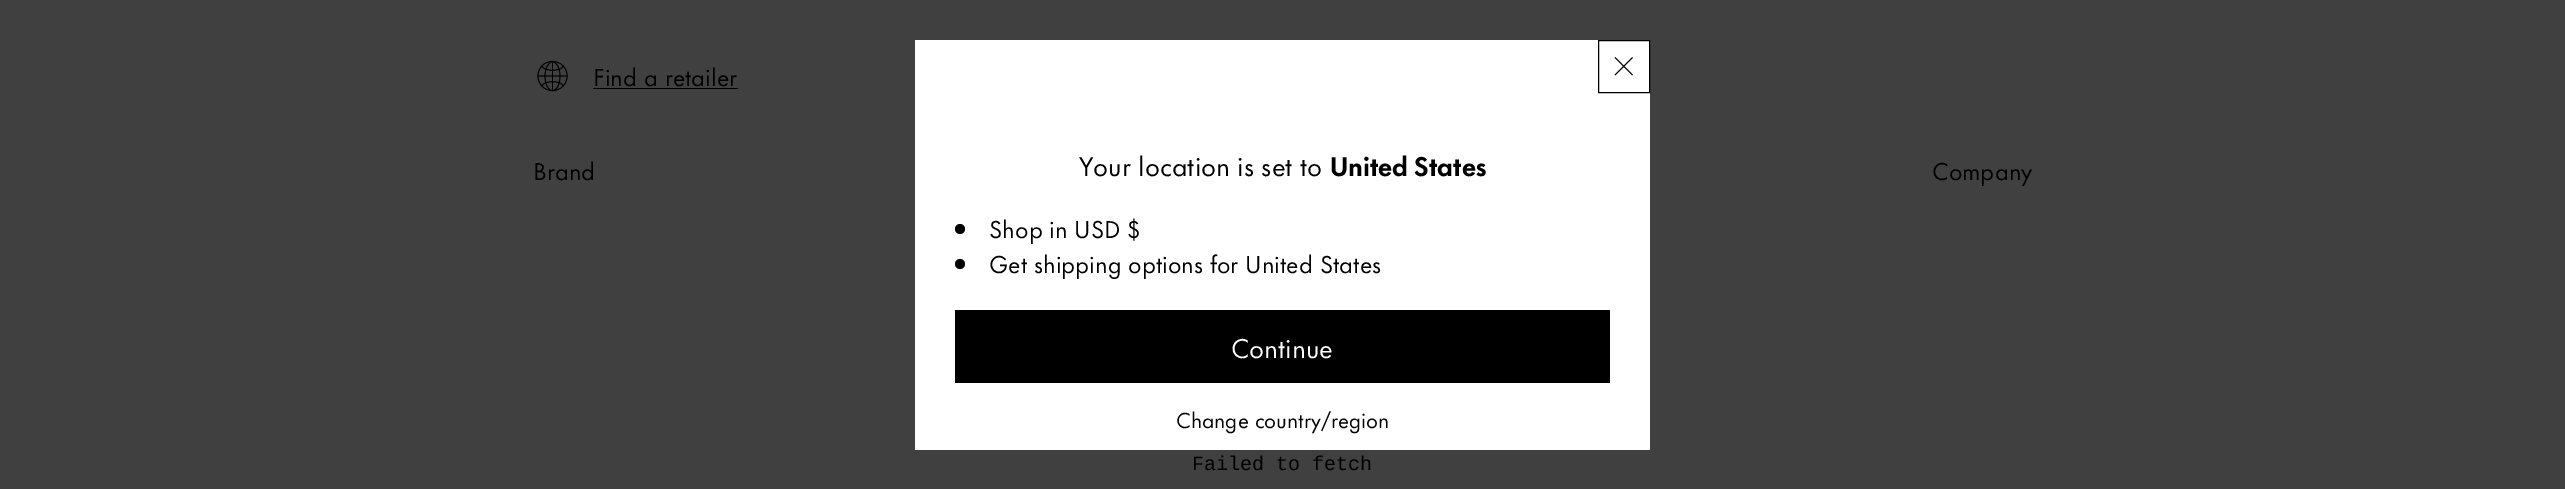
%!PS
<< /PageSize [2565 489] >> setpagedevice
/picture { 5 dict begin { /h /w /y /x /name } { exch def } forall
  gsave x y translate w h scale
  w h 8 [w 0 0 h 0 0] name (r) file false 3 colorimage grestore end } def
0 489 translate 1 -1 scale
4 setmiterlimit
0.251 setgray
0 0 2565 489 rectfill
(img1.rgb) 537 60 31 32 picture
/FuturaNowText-Regular [22.5 0 0 -22.5 0 0] selectfont
0 setgray
593 86 moveto (Find a retailer) show
593 88 145 1 rectfill
533 180 moveto (Brand) show
1932 180 moveto (Company) show
1 setgray
915 40 735 410 rectfill
0 setgray
1598.5 40.5 51 52 rectstroke
(img2.rgb) 1614 57 19 19 picture
/FuturaNowText-Regular [25 0 0 -25 0 0] selectfont
1079 176 moveto (Your location is set to) show
/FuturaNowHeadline-Bold [25 0 0 -25 0 0] selectfont
1330 176 moveto (United States) show
newpath 960 229 5 0 360 arc closepath fill
/FuturaNowText-Regular [22.5 0 0 -22.5 0 0] selectfont
989 238 moveto (Shop in USD $) show
newpath 960 264 5 0 360 arc closepath fill
989 273 moveto (Get shipping options for United States) show
955 310 655 73 rectfill
/FuturaNowText-Regular [25 0 0 -25 0 0] selectfont
1 setgray
1231 358 moveto (Continue) show
/FuturaNowText-Regular [20 0 0 -20 0 0] selectfont
0 setgray
1176 428 moveto (Change country/region) show
/LiberationMono-Regular [20 0 0 -20 0 0] selectfont
1192 470 moveto (Failed to fetch) show
showpage
